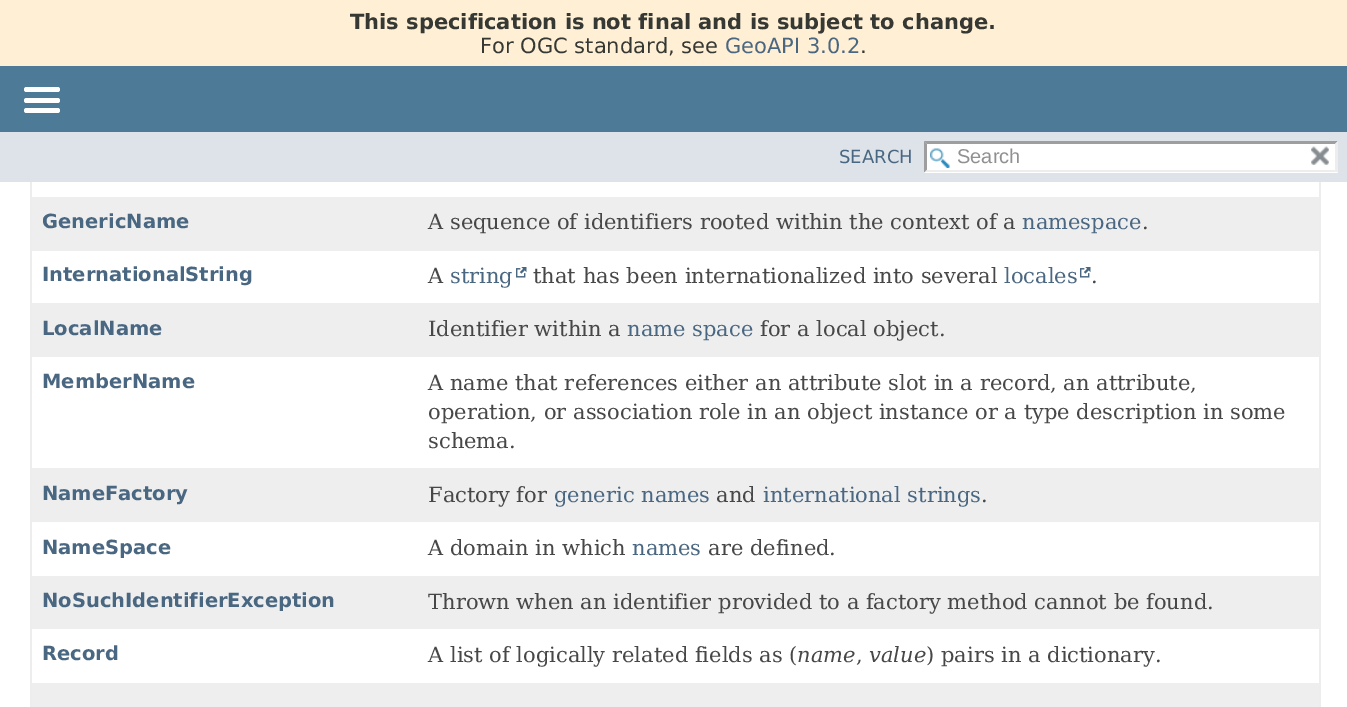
%!PS
<< /PageSize [1347 707] >> setpagedevice
/roundrect { 5 dict begin { /r /h /w /y /x } { exch def } forall
  x r add y moveto x w add y 2 copy h add r arct x w add y h add x 1 index r arct
  x y h add x y r arct x y 2 copy exch w add exch r arct closepath end } def
/picture { 5 dict begin { /h /w /y /x /name } { exch def } forall
  gsave x y translate w h scale
  w h 8 [w 0 0 h 0 0] name (r) file false 3 colorimage grestore end } def
0 707 translate 1 -1 scale
4 setmiterlimit
1 setgray
0 0 1347 707 rectfill
1 0.937 0.835 setrgbcolor
0 0 1347 66 rectfill
/DejaVuSans-Bold [21 0 0 -21 0 0] selectfont
0.208 0.22 0.2 setrgbcolor
350 29 moveto (This specification is not final and is subject to change.) show
/DejaVuSans-Regular [21 0 0 -21 0 0] selectfont
480 53 moveto (For OGC standard, see) show
0.29 0.404 0.51 setrgbcolor
725 53 moveto (GeoAPI 3.0.2) show
0.208 0.22 0.2 setrgbcolor
860 53 moveto (.) show
0.302 0.478 0.592 setrgbcolor
0 66 1347 66 rectfill
1 setgray
24 87 36 5 2.5 roundrect fill
24 98 36 5 2.5 roundrect fill
24 108 36 5 2.5 roundrect fill
0.871 0.89 0.914 setrgbcolor
0 132 1347 50 rectfill
/DejaVuSans-Regular [18 0 0 -18 0 0] selectfont
0.29 0.404 0.51 setrgbcolor
839 163 moveto (SEARCH) show
1 setgray
924 141 414 32 rectfill
(img1.rgb) 930 148 20 20 picture
0.62 setgray
newpath 924 141 moveto 1338 141 lineto 1335 144 lineto 927 144 lineto closepath fill
0.929 setgray
newpath 1338 141 moveto 1338 172.5 lineto 1335 169.5 lineto 1335 144 lineto closepath fill
newpath 1338 172 moveto 924 172 lineto 927 170 lineto 1335 170 lineto closepath fill
0.62 setgray
newpath 924 172.5 moveto 924 141 lineto 927 144 lineto 927 169.5 lineto closepath fill
/LiberationSans-Regular [20 0 0 -20 0 0] selectfont
0.565 setgray
957 163 moveto (Search) show
(img2.rgb) 1311 146 18 19 picture
0.929 setgray
1319 182 2 525 rectfill
30 182 2 525 rectfill
0.933 0.933 0.937 setrgbcolor
32 197 1287 54 rectfill
/DejaVuSans-Bold [19.5 0 0 -19.5 0 0] selectfont
0.29 0.404 0.51 setrgbcolor
42 228 moveto (GenericName) show
/DejaVuSerif-Regular [21 0 0 -21 0 0] selectfont
0.278 setgray
428 229 moveto (A sequence of identifiers rooted within the context of a) show
0.29 0.404 0.51 setrgbcolor
1022 229 moveto (namespace) show
0.278 setgray
1142 229 moveto (.) show
/DejaVuSans-Bold [19.5 0 0 -19.5 0 0] selectfont
0.29 0.404 0.51 setrgbcolor
42 281 moveto (InternationalString) show
/DejaVuSerif-Regular [21 0 0 -21 0 0] selectfont
0.278 setgray
428 283 moveto (A) show
0.29 0.404 0.51 setrgbcolor
450 283 moveto (string) show
(img3.rgb) 516 267 11 11 picture
0.278 setgray
533 283 moveto (that has been internationalized into several) show
0.29 0.404 0.51 setrgbcolor
1004 283 moveto (locales) show
(img3.rgb) 1080 267 11 11 picture
0.278 setgray
1091 283 moveto (.) show
0.933 0.933 0.937 setrgbcolor
32 303 1287 54 rectfill
/DejaVuSans-Bold [19.5 0 0 -19.5 0 0] selectfont
0.29 0.404 0.51 setrgbcolor
42 335 moveto (LocalName) show
/DejaVuSerif-Regular [21 0 0 -21 0 0] selectfont
0.278 setgray
428 336 moveto (Identifier within a) show
0.29 0.404 0.51 setrgbcolor
627 336 moveto (name space) show
0.278 setgray
760 336 moveto (for a local object.) show
/DejaVuSans-Bold [19.5 0 0 -19.5 0 0] selectfont
0.29 0.404 0.51 setrgbcolor
42 388 moveto (MemberName) show
/DejaVuSerif-Regular [21 0 0 -21 0 0] selectfont
0.278 setgray
428 390 moveto (A name that references either an attribute slot in a record, an attribute,) show
428 419 moveto (operation, or association role in an object instance or a type description in some) show
428 448 moveto (schema.) show
0.933 0.933 0.937 setrgbcolor
32 468 1287 54 rectfill
/DejaVuSans-Bold [19.5 0 0 -19.5 0 0] selectfont
0.29 0.404 0.51 setrgbcolor
42 500 moveto (NameFactory) show
/DejaVuSerif-Regular [21 0 0 -21 0 0] selectfont
0.278 setgray
428 502 moveto (Factory for) show
0.29 0.404 0.51 setrgbcolor
554 502 moveto (generic names) show
0.278 setgray
716 502 moveto (and) show
0.29 0.404 0.51 setrgbcolor
763 502 moveto (international strings) show
0.278 setgray
981 502 moveto (.) show
/DejaVuSans-Bold [19.5 0 0 -19.5 0 0] selectfont
0.29 0.404 0.51 setrgbcolor
42 554 moveto (NameSpace) show
/DejaVuSerif-Regular [21 0 0 -21 0 0] selectfont
0.278 setgray
428 555 moveto (A domain in which) show
0.29 0.404 0.51 setrgbcolor
632 555 moveto (names) show
0.278 setgray
708 555 moveto (are defined.) show
0.933 0.933 0.937 setrgbcolor
32 576 1287 53 rectfill
/DejaVuSans-Bold [19.5 0 0 -19.5 0 0] selectfont
0.29 0.404 0.51 setrgbcolor
42 607 moveto (NoSuchIdentifierException) show
/DejaVuSerif-Regular [21 0 0 -21 0 0] selectfont
0.278 setgray
428 609 moveto (Thrown when an identifier provided to a factory method cannot be found.) show
/DejaVuSans-Bold [19.5 0 0 -19.5 0 0] selectfont
0.29 0.404 0.51 setrgbcolor
42 660 moveto (Record) show
/DejaVuSerif-Regular [21 0 0 -21 0 0] selectfont
0.278 setgray
428 662 moveto (A list of logically related fields as \() show
/DejaVuSerif-Italic [21 0 0 -21 0 0] selectfont
797 662 moveto (name) show
/DejaVuSerif-Regular [21 0 0 -21 0 0] selectfont
856 662 moveto (,) show
/DejaVuSerif-Italic [21 0 0 -21 0 0] selectfont
869 662 moveto (value) show
/DejaVuSerif-Regular [21 0 0 -21 0 0] selectfont
926 662 moveto (\) pairs in a dictionary.) show
0.933 0.933 0.937 setrgbcolor
32 683 1287 24 rectfill
showpage
